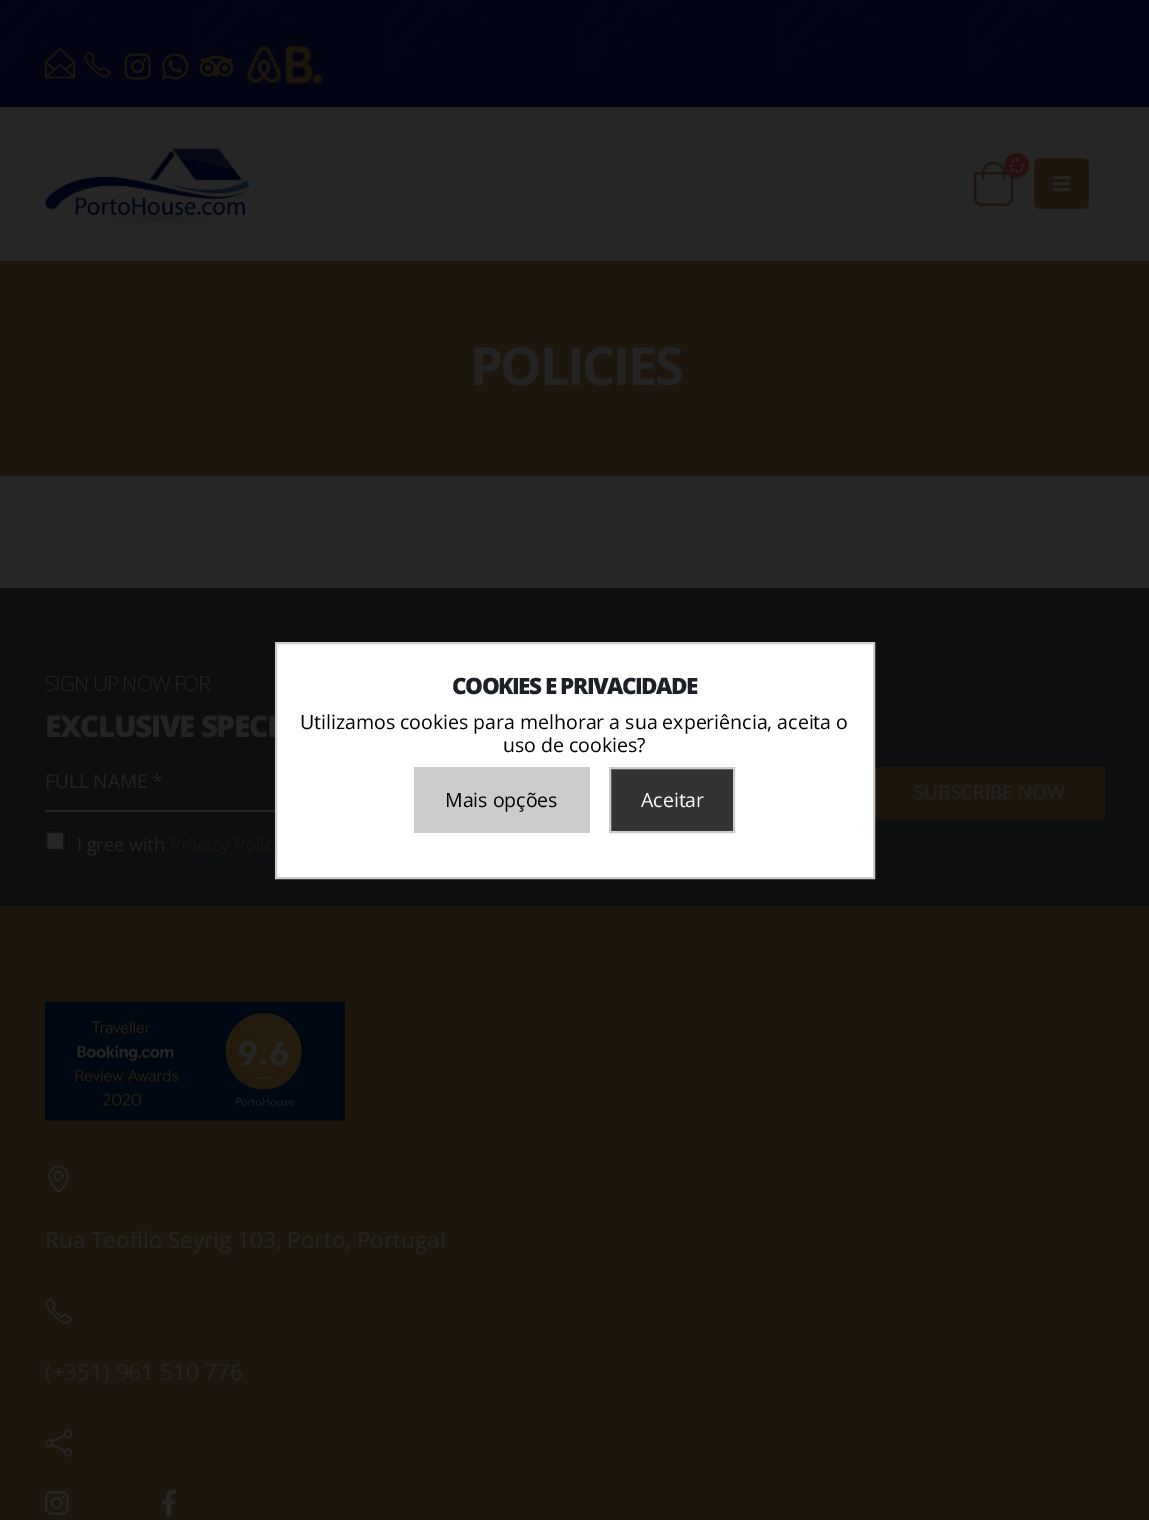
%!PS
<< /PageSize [1149 1520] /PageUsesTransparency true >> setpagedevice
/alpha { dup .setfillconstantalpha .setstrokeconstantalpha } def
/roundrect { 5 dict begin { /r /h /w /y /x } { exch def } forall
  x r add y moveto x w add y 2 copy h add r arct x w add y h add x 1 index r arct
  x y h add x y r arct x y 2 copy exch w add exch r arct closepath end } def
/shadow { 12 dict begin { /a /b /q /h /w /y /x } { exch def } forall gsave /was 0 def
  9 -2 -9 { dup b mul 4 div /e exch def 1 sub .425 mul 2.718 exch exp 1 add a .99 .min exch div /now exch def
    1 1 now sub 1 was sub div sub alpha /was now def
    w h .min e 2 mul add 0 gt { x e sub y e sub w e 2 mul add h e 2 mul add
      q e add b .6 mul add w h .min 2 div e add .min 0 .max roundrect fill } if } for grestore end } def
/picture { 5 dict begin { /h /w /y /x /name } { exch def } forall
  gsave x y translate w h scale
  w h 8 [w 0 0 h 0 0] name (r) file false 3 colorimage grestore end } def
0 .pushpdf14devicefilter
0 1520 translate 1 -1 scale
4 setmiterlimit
1 setgray
0 0 1149 1520 rectfill
(img1.rgb) 0 0 1149 107 picture
(img2.rgb) 45 48 30 31 picture
(img3.rgb) 84 51 27 27 picture
(img4.rgb) 124 53 27 27 picture
(img5.rgb) 162 53 27 27 picture
(img6.rgb) 199 55 35 23 picture
(img7.rgb) 246 45 35 39 picture
(img8.rgb) 285 45 38 39 picture
0.149 setgray
0 107 1149 154 rectfill
(img9.rgb) 45 148 205 83 picture
(img10.rgb) 973 161 41 45 picture
0 setgray
1004 155 24 24 12 1.5 0.3 shadow
0.149 0.055 0.055 setrgbcolor
newpath 1017 165 12 0 360 arc closepath fill
(img11.rgb) 1009 158 16 16 picture
0.11 0.086 0.047 setrgbcolor
1034 158 55 51 6 roundrect fill
(img12.rgb) 1053 176 18 16 picture
0 261 1149 215 rectfill
/OpenSans-Bold [52.5 0 0 -52.5 0 0] selectfont
0.137 setgray
470 385 moveto -2.5 0 (POLICIES) ashow
0.149 setgray
0 476 1149 112 rectfill
0.047 0.055 0.063 setrgbcolor
0 588 1149 318 rectfill
/OpenSans-Light [21 0 0 -21 0 0] selectfont
0.137 setgray
45 691 moveto -1 0 (SIGN UP NOW FOR) ashow
/OpenSans-ExtraBold [30 0 0 -30 0 0] selectfont
45 737 moveto -1.5 0 (EXCLUSIVE SPECI) ashow
0.149 setgray
45 810 230 2 rectfill
/OpenSans-Regular [19 0 0 -19 0 0] selectfont
0.137 setgray
45 788 moveto (FULL NAME *) show
0.11 0.086 0.047 setrgbcolor
875 767 228 51 rectfill
1103 767 2 52 rectfill
0.094 0.071 0.035 setrgbcolor
873 818 231 2 rectfill
0.137 setgray
914 799 moveto (SUBSCRIBE NOW) show
0.149 setgray
46 832 18 18 2 roundrect gsave fill grestore
0.071 setgray
2 setlinewidth
stroke
/OpenSans-Regular [18 0 0 -18 0 0] selectfont
0.137 setgray
77 851 moveto (I gree with) show
0.11 0.086 0.047 setrgbcolor
170 851 moveto (Privacy Polic) show
0 906 1149 614 rectfill
(img13.rgb) 45 1002 300 119 picture
(img14.rgb) 48 1165 21 28 picture
/OpenSans-Regular [22.5 0 0 -22.5 0 0] selectfont
0.137 setgray
45 1248 moveto (Rua Teofilo Seyrig 103, Porto, Portugal) show
(img15.rgb) 45 1298 27 27 picture
45 1380 moveto (\(+351\) 961 510 776) show
(img16.rgb) 45 1429 27 28 picture
(img17.rgb) 45 1491 24 24 picture
(img18.rgb) 162 1489 14 28 picture
1 setgray
newpath 276 643 moveto 874 643 lineto 874 878 lineto 276 878 lineto closepath gsave fill grestore
0.8 setgray
stroke
/OpenSans-ExtraBold [22.5 0 0 -22.5 0 0] selectfont
0.114 0.129 0.153 setrgbcolor
452 694 moveto -1.5 0 (COOKIES E PRIVACIDADE) ashow
/OpenSans-Regular [19.5 0 0 -19.5 0 0] selectfont
0 setgray
300 729 moveto (Utilizamos cookies para melhorar a sua experiência, aceita o) show
503 752 moveto (uso de cookies?) show
0.8 setgray
414 767 176 66 rectfill
0 setgray
445 807 moveto (Mais opções) show
0.2 setgray
newpath 610 768 moveto 734 768 lineto 734 832 lineto 610 832 lineto closepath gsave fill grestore
0.8 setgray
stroke
1 setgray
641 807 moveto (Aceitar) show
.poppdf14devicefilter showpage
